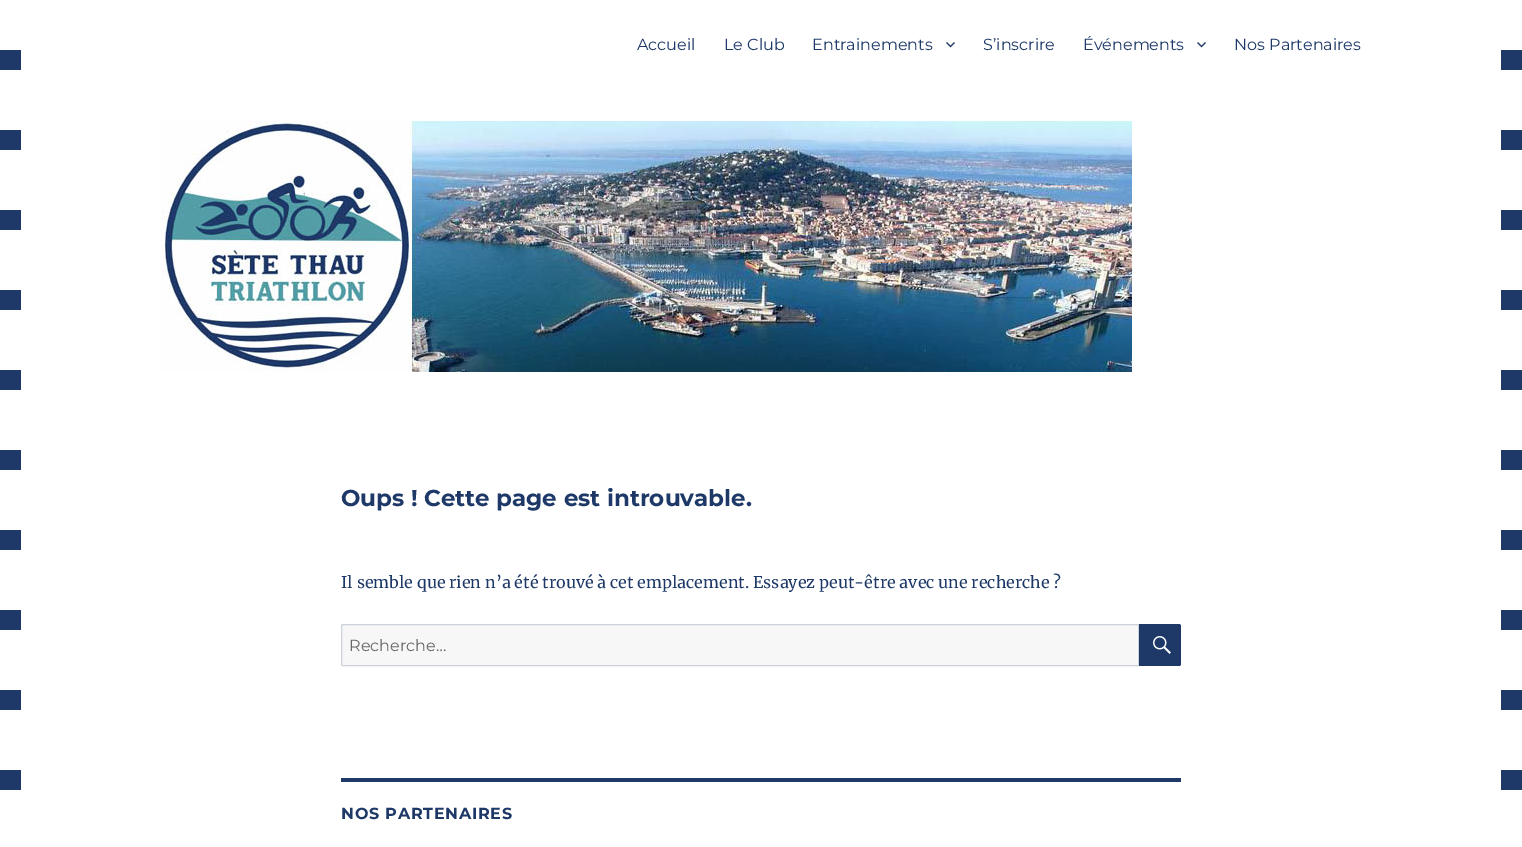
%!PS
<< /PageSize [1522 847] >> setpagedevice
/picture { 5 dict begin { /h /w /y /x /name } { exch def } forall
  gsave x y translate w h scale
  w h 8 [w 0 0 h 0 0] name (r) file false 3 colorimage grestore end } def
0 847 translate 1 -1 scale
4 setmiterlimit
1 setgray
0 0 1522 847 rectfill
(img1.rgb) 0 0 1522 847 picture
21 50 1480 740 rectfill
/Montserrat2-Thin [16 0 0 -16 0 0] selectfont
0.118 0.224 0.408 setrgbcolor
637 50 moveto (Accueil) show
724 50 moveto (Le Club) show
812 50 moveto (Entrainements) show
(img2.rgb) 946 42 9 6 picture
983 50 moveto (S’inscrire) show
1083 50 moveto (Événements) show
(img2.rgb) 1197 42 9 6 picture
1234 50 moveto (Nos Partenaires) show
(img3.rgb) 161 121 971 251 picture
/Montserrat-Thin [23 0 0 -23 0 0] selectfont
341 506 moveto (Oups ! Cette page est introuvable.) show
/Merriweather-Regular [16 0 0 -16 0 0] selectfont
341 588 moveto (Il semble que rien n’a été trouvé à cet emplacement. Essayez peut-être avec une recherche ?) show
0.969 setgray
newpath 343 624.5 moveto 1138.5 624.5 lineto 1138.5 665.5 lineto 343 665.5 lineto 342 665.5 341.5 665 341.5 664 curveto 341.5 626 lineto 341.5 625 342 624.5 343 624.5 curveto closepath gsave fill grestore
0.8 0.82 0.855 setrgbcolor
stroke
/Montserrat2-Thin [16 0 0 -16 0 0] selectfont
0.408 setgray
349 651 moveto (Recherche…) show
0.118 0.224 0.408 setrgbcolor
newpath 1139 624 moveto 1179 624 lineto 1180 624 1181 625 1181 626 curveto 1181 664 lineto 1181 665 1180 666 1179 666 curveto 1139 666 lineto closepath fill
(img4.rgb) 1153 636 18 18 picture
341 778 840 4 rectfill
/Montserrat-Thin [16 0 0 -16 0 0] selectfont
341 819 moveto 0.75 0 (NOS PARTENAIRES) ashow
showpage
